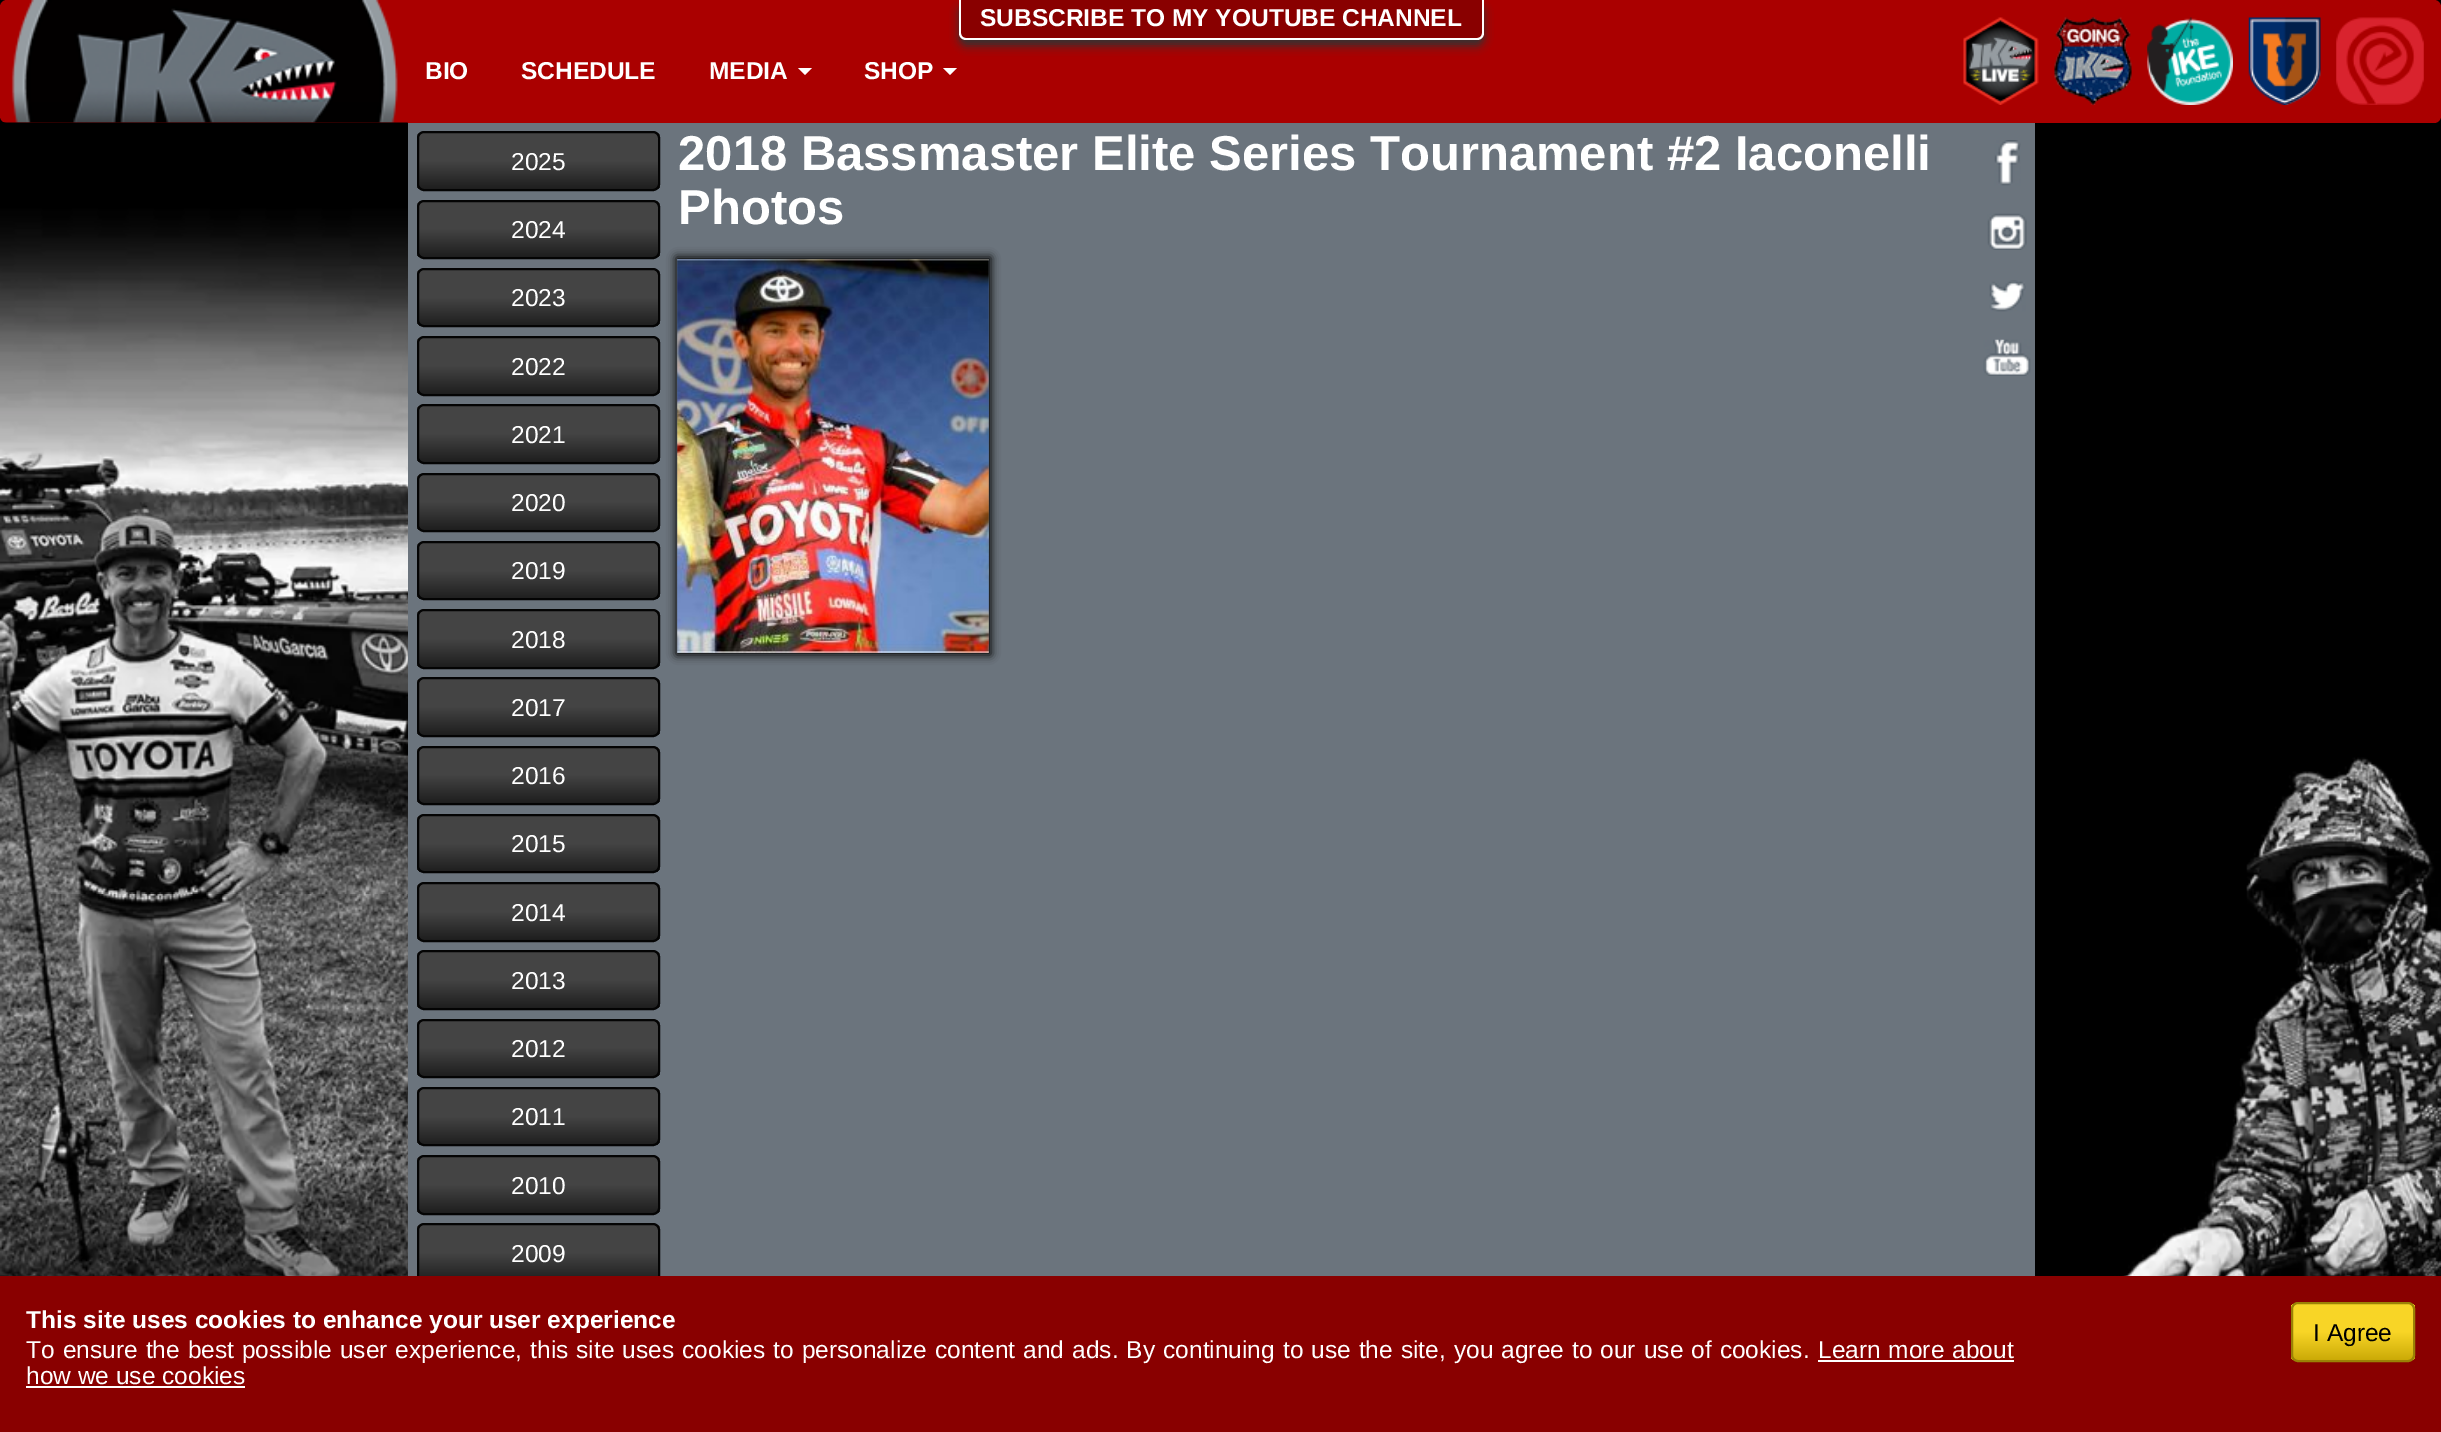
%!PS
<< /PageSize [2441 1432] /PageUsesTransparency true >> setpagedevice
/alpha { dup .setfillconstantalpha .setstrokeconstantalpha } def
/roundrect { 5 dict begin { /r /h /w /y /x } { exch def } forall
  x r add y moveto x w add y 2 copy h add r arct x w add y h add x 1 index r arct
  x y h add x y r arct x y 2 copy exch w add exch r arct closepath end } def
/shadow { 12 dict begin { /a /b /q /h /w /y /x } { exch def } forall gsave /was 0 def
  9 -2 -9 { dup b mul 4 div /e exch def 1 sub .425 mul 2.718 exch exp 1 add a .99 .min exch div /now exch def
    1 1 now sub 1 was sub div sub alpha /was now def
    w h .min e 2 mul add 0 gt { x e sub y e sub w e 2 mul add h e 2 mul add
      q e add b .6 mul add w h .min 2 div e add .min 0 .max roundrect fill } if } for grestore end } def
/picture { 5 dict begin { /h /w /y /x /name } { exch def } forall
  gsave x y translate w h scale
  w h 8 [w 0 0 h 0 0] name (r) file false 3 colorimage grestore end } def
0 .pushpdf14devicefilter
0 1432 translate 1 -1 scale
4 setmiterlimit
0 setgray
0 0 2441 1432 rectfill
0.667 0 0 setrgbcolor
0 0 2441 123 7 roundrect fill
(img1.rgb) 11 0 387 123 picture
0.2 setgray
959 5 525 41 7 4.5 1 shadow
0.537 0 0 setrgbcolor
newpath 961 0 moveto 1482 0 lineto 1482 34 lineto 1482 37 1480 39 1477 39 curveto 966 39 lineto 963 39 961 37 961 34 curveto closepath fill
1 setgray
newpath 959 0 moveto 1484 0 lineto 1484 33 lineto 1484 37 1481 40 1477 40 curveto 966 40 lineto 962 40 959 37 959 33 curveto closepath 961 0 moveto 1482 0 lineto 1482 33 lineto 1482 36 1480 38 1477 38 curveto 966 38 lineto 963 38 961 36 961 33 curveto closepath eofill
/LiberationSans-Bold [24.5 0 0 -24.5 0 0] selectfont
980 26 moveto (SUBSCRIBE TO MY YOUTUBE CHANNEL) show
425 79 moveto (BIO) show
521 79 moveto (SCHEDULE) show
709 79 moveto (MEDIA) show
newpath 798 68 moveto 812 68 lineto 805 75 lineto closepath fill
864 79 moveto (SHOP) show
newpath 943 68 moveto 957 68 lineto 950 75 lineto closepath fill
(img2.rgb) 1963 17 76 88 picture
(img3.rgb) 2054 17 78 88 picture
(img4.rgb) 2147 17 86 88 picture
(img5.rgb) 2248 17 73 88 picture
(img6.rgb) 2336 17 88 88 picture
(img7.rgb) 0 208 408 1068 picture
(img8.rgb) 3 122 405 1 picture
0.42 0.455 0.49 setrgbcolor
408 123 1627 1153 rectfill
gsave
417 131 243 60 7 roundrect clip newpath
gsave newpath 417 133 moveto 660 133 lineto 660 189 lineto 417 189 lineto closepath clip newpath
<< /ShadingType 2 /ColorSpace /DeviceRGB /Coords [538 133 538 189] /Extend [true true] /Function << /FunctionType 3 /Domain [0 1] /Functions [<< /FunctionType 2 /Domain [0 1] /C0 [0.267 0.267 0.267] /C1 [0.267 0.267 0.267] /N 1 >> << /FunctionType 2 /Domain [0 1] /C0 [0.267 0.267 0.267] /C1 [0.118 0.118 0.118] /N 1 >>] /Bounds [0.5] /Encode [0 1 0 1] >> >> shfill grestore
grestore
0.016 setgray
2 setlinewidth
418 132 241 58 6 roundrect stroke
/LiberationSans-Regular [24.5 0 0 -24.5 0 0] selectfont
1 setgray
511 170 moveto (2025) show
gsave
417 200 243 59 7 roundrect clip newpath
gsave newpath 417 201 moveto 660 201 lineto 660 257 lineto 417 257 lineto closepath clip newpath
<< /ShadingType 2 /ColorSpace /DeviceRGB /Coords [538 201 538 257] /Extend [true true] /Function << /FunctionType 3 /Domain [0 1] /Functions [<< /FunctionType 2 /Domain [0 1] /C0 [0.267 0.267 0.267] /C1 [0.267 0.267 0.267] /N 1 >> << /FunctionType 2 /Domain [0 1] /C0 [0.267 0.267 0.267] /C1 [0.118 0.118 0.118] /N 1 >>] /Bounds [0.5] /Encode [0 1 0 1] >> >> shfill grestore
grestore
0.016 setgray
418 201 241 57 6 roundrect stroke
1 setgray
511 238 moveto (2024) show
gsave
417 268 243 59 7 roundrect clip newpath
gsave newpath 417 270 moveto 660 270 lineto 660 326 lineto 417 326 lineto closepath clip newpath
<< /ShadingType 2 /ColorSpace /DeviceRGB /Coords [538 270 538 326] /Extend [true true] /Function << /FunctionType 3 /Domain [0 1] /Functions [<< /FunctionType 2 /Domain [0 1] /C0 [0.267 0.267 0.267] /C1 [0.267 0.267 0.267] /N 1 >> << /FunctionType 2 /Domain [0 1] /C0 [0.267 0.267 0.267] /C1 [0.118 0.118 0.118] /N 1 >>] /Bounds [0.5] /Encode [0 1 0 1] >> >> shfill grestore
grestore
0.016 setgray
418 269 241 57 6 roundrect stroke
1 setgray
511 306 moveto (2023) show
gsave
417 336 243 60 7 roundrect clip newpath
gsave newpath 417 338 moveto 660 338 lineto 660 394 lineto 417 394 lineto closepath clip newpath
<< /ShadingType 2 /ColorSpace /DeviceRGB /Coords [538 338 538 394] /Extend [true true] /Function << /FunctionType 3 /Domain [0 1] /Functions [<< /FunctionType 2 /Domain [0 1] /C0 [0.267 0.267 0.267] /C1 [0.267 0.267 0.267] /N 1 >> << /FunctionType 2 /Domain [0 1] /C0 [0.267 0.267 0.267] /C1 [0.118 0.118 0.118] /N 1 >>] /Bounds [0.5] /Encode [0 1 0 1] >> >> shfill grestore
grestore
0.016 setgray
418 337 241 58 6 roundrect stroke
1 setgray
511 375 moveto (2022) show
gsave
417 404 243 60 7 roundrect clip newpath
gsave newpath 417 406 moveto 660 406 lineto 660 462 lineto 417 462 lineto closepath clip newpath
<< /ShadingType 2 /ColorSpace /DeviceRGB /Coords [538 406 538 462] /Extend [true true] /Function << /FunctionType 3 /Domain [0 1] /Functions [<< /FunctionType 2 /Domain [0 1] /C0 [0.267 0.267 0.267] /C1 [0.267 0.267 0.267] /N 1 >> << /FunctionType 2 /Domain [0 1] /C0 [0.267 0.267 0.267] /C1 [0.118 0.118 0.118] /N 1 >>] /Bounds [0.5] /Encode [0 1 0 1] >> >> shfill grestore
grestore
0.016 setgray
418 405 241 58 6 roundrect stroke
1 setgray
511 443 moveto (2021) show
gsave
417 473 243 59 7 roundrect clip newpath
gsave newpath 417 474 moveto 660 474 lineto 660 530 lineto 417 530 lineto closepath clip newpath
<< /ShadingType 2 /ColorSpace /DeviceRGB /Coords [538 474 538 530] /Extend [true true] /Function << /FunctionType 3 /Domain [0 1] /Functions [<< /FunctionType 2 /Domain [0 1] /C0 [0.267 0.267 0.267] /C1 [0.267 0.267 0.267] /N 1 >> << /FunctionType 2 /Domain [0 1] /C0 [0.267 0.267 0.267] /C1 [0.118 0.118 0.118] /N 1 >>] /Bounds [0.5] /Encode [0 1 0 1] >> >> shfill grestore
grestore
0.016 setgray
418 474 241 57 6 roundrect stroke
1 setgray
511 511 moveto (2020) show
gsave
417 541 243 59 7 roundrect clip newpath
gsave newpath 417 543 moveto 660 543 lineto 660 599 lineto 417 599 lineto closepath clip newpath
<< /ShadingType 2 /ColorSpace /DeviceRGB /Coords [538 543 538 599] /Extend [true true] /Function << /FunctionType 3 /Domain [0 1] /Functions [<< /FunctionType 2 /Domain [0 1] /C0 [0.267 0.267 0.267] /C1 [0.267 0.267 0.267] /N 1 >> << /FunctionType 2 /Domain [0 1] /C0 [0.267 0.267 0.267] /C1 [0.118 0.118 0.118] /N 1 >>] /Bounds [0.5] /Encode [0 1 0 1] >> >> shfill grestore
grestore
0.016 setgray
418 542 241 57 6 roundrect stroke
1 setgray
511 579 moveto (2019) show
gsave
417 609 243 60 7 roundrect clip newpath
gsave newpath 417 611 moveto 660 611 lineto 660 667 lineto 417 667 lineto closepath clip newpath
<< /ShadingType 2 /ColorSpace /DeviceRGB /Coords [538 611 538 667] /Extend [true true] /Function << /FunctionType 3 /Domain [0 1] /Functions [<< /FunctionType 2 /Domain [0 1] /C0 [0.267 0.267 0.267] /C1 [0.267 0.267 0.267] /N 1 >> << /FunctionType 2 /Domain [0 1] /C0 [0.267 0.267 0.267] /C1 [0.118 0.118 0.118] /N 1 >>] /Bounds [0.5] /Encode [0 1 0 1] >> >> shfill grestore
grestore
0.016 setgray
418 610 241 58 6 roundrect stroke
1 setgray
511 648 moveto (2018) show
gsave
417 677 243 60 7 roundrect clip newpath
gsave newpath 417 679 moveto 660 679 lineto 660 735 lineto 417 735 lineto closepath clip newpath
<< /ShadingType 2 /ColorSpace /DeviceRGB /Coords [538 679 538 735] /Extend [true true] /Function << /FunctionType 3 /Domain [0 1] /Functions [<< /FunctionType 2 /Domain [0 1] /C0 [0.267 0.267 0.267] /C1 [0.267 0.267 0.267] /N 1 >> << /FunctionType 2 /Domain [0 1] /C0 [0.267 0.267 0.267] /C1 [0.118 0.118 0.118] /N 1 >>] /Bounds [0.5] /Encode [0 1 0 1] >> >> shfill grestore
grestore
0.016 setgray
418 678 241 58 6 roundrect stroke
1 setgray
511 716 moveto (2017) show
gsave
417 746 243 59 7 roundrect clip newpath
gsave newpath 417 747 moveto 660 747 lineto 660 803 lineto 417 803 lineto closepath clip newpath
<< /ShadingType 2 /ColorSpace /DeviceRGB /Coords [538 747 538 803] /Extend [true true] /Function << /FunctionType 3 /Domain [0 1] /Functions [<< /FunctionType 2 /Domain [0 1] /C0 [0.267 0.267 0.267] /C1 [0.267 0.267 0.267] /N 1 >> << /FunctionType 2 /Domain [0 1] /C0 [0.267 0.267 0.267] /C1 [0.118 0.118 0.118] /N 1 >>] /Bounds [0.5] /Encode [0 1 0 1] >> >> shfill grestore
grestore
0.016 setgray
418 747 241 57 6 roundrect stroke
1 setgray
511 784 moveto (2016) show
gsave
417 814 243 59 7 roundrect clip newpath
gsave newpath 417 816 moveto 660 816 lineto 660 872 lineto 417 872 lineto closepath clip newpath
<< /ShadingType 2 /ColorSpace /DeviceRGB /Coords [538 816 538 872] /Extend [true true] /Function << /FunctionType 3 /Domain [0 1] /Functions [<< /FunctionType 2 /Domain [0 1] /C0 [0.267 0.267 0.267] /C1 [0.267 0.267 0.267] /N 1 >> << /FunctionType 2 /Domain [0 1] /C0 [0.267 0.267 0.267] /C1 [0.118 0.118 0.118] /N 1 >>] /Bounds [0.5] /Encode [0 1 0 1] >> >> shfill grestore
grestore
0.016 setgray
418 815 241 57 6 roundrect stroke
1 setgray
511 852 moveto (2015) show
gsave
417 882 243 60 7 roundrect clip newpath
gsave newpath 417 884 moveto 660 884 lineto 660 940 lineto 417 940 lineto closepath clip newpath
<< /ShadingType 2 /ColorSpace /DeviceRGB /Coords [538 884 538 940] /Extend [true true] /Function << /FunctionType 3 /Domain [0 1] /Functions [<< /FunctionType 2 /Domain [0 1] /C0 [0.267 0.267 0.267] /C1 [0.267 0.267 0.267] /N 1 >> << /FunctionType 2 /Domain [0 1] /C0 [0.267 0.267 0.267] /C1 [0.118 0.118 0.118] /N 1 >>] /Bounds [0.5] /Encode [0 1 0 1] >> >> shfill grestore
grestore
0.016 setgray
418 883 241 58 6 roundrect stroke
1 setgray
511 921 moveto (2014) show
gsave
417 950 243 60 7 roundrect clip newpath
gsave newpath 417 952 moveto 660 952 lineto 660 1008 lineto 417 1008 lineto closepath clip newpath
<< /ShadingType 2 /ColorSpace /DeviceRGB /Coords [538 952 538 1008] /Extend [true true] /Function << /FunctionType 3 /Domain [0 1] /Functions [<< /FunctionType 2 /Domain [0 1] /C0 [0.267 0.267 0.267] /C1 [0.267 0.267 0.267] /N 1 >> << /FunctionType 2 /Domain [0 1] /C0 [0.267 0.267 0.267] /C1 [0.118 0.118 0.118] /N 1 >>] /Bounds [0.5] /Encode [0 1 0 1] >> >> shfill grestore
grestore
0.016 setgray
418 951 241 58 6 roundrect stroke
1 setgray
511 989 moveto (2013) show
gsave
417 1019 243 59 7 roundrect clip newpath
gsave newpath 417 1020 moveto 660 1020 lineto 660 1076 lineto 417 1076 lineto closepath clip newpath
<< /ShadingType 2 /ColorSpace /DeviceRGB /Coords [538 1020 538 1076] /Extend [true true] /Function << /FunctionType 3 /Domain [0 1] /Functions [<< /FunctionType 2 /Domain [0 1] /C0 [0.267 0.267 0.267] /C1 [0.267 0.267 0.267] /N 1 >> << /FunctionType 2 /Domain [0 1] /C0 [0.267 0.267 0.267] /C1 [0.118 0.118 0.118] /N 1 >>] /Bounds [0.5] /Encode [0 1 0 1] >> >> shfill grestore
grestore
0.016 setgray
418 1020 241 57 6 roundrect stroke
1 setgray
511 1057 moveto (2012) show
gsave
417 1087 243 59 7 roundrect clip newpath
gsave newpath 417 1089 moveto 660 1089 lineto 660 1145 lineto 417 1145 lineto closepath clip newpath
<< /ShadingType 2 /ColorSpace /DeviceRGB /Coords [538 1089 538 1145] /Extend [true true] /Function << /FunctionType 3 /Domain [0 1] /Functions [<< /FunctionType 2 /Domain [0 1] /C0 [0.267 0.267 0.267] /C1 [0.267 0.267 0.267] /N 1 >> << /FunctionType 2 /Domain [0 1] /C0 [0.267 0.267 0.267] /C1 [0.118 0.118 0.118] /N 1 >>] /Bounds [0.5] /Encode [0 1 0 1] >> >> shfill grestore
grestore
0.016 setgray
418 1088 241 57 6 roundrect stroke
1 setgray
511 1125 moveto (2011) show
gsave
417 1155 243 60 7 roundrect clip newpath
gsave newpath 417 1157 moveto 660 1157 lineto 660 1213 lineto 417 1213 lineto closepath clip newpath
<< /ShadingType 2 /ColorSpace /DeviceRGB /Coords [538 1157 538 1213] /Extend [true true] /Function << /FunctionType 3 /Domain [0 1] /Functions [<< /FunctionType 2 /Domain [0 1] /C0 [0.267 0.267 0.267] /C1 [0.267 0.267 0.267] /N 1 >> << /FunctionType 2 /Domain [0 1] /C0 [0.267 0.267 0.267] /C1 [0.118 0.118 0.118] /N 1 >>] /Bounds [0.5] /Encode [0 1 0 1] >> >> shfill grestore
grestore
0.016 setgray
418 1156 241 58 6 roundrect stroke
1 setgray
511 1194 moveto (2010) show
gsave
417 1223 243 60 7 roundrect clip newpath
gsave newpath 417 1225 moveto 660 1225 lineto 660 1276 lineto 417 1276 lineto closepath clip newpath
<< /ShadingType 2 /ColorSpace /DeviceRGB /Coords [538 1225 538 1281] /Extend [true true] /Function << /FunctionType 3 /Domain [0 1] /Functions [<< /FunctionType 2 /Domain [0 1] /C0 [0.267 0.267 0.267] /C1 [0.267 0.267 0.267] /N 1 >> << /FunctionType 2 /Domain [0 1] /C0 [0.267 0.267 0.267] /C1 [0.118 0.118 0.118] /N 1 >>] /Bounds [0.5] /Encode [0 1 0 1] >> >> shfill grestore
grestore
0.016 setgray
418 1224 241 58 6 roundrect stroke
1 setgray
511 1262 moveto (2009) show
/LiberationSans-Bold [49 0 0 -49 0 0] selectfont
678 170 moveto (2018 Bassmaster Elite Series Tournament #2 Iaconelli) show
678 224 moveto (Photos) show
0 setgray
676 257 315 398 0 4.5 1 shadow
(img9.rgb) 677 259 312 394 picture
(img10.rgb) 1994 140 27 46 picture
(img11.rgb) 1987 213 40 37 picture
(img12.rgb) 1989 280 37 32 picture
(img13.rgb) 1983 339 48 37 picture
(img14.rgb) 2035 757 406 519 picture
0.537 0 0 setrgbcolor
0 1276 2441 156 rectfill
/LiberationSans-Bold [24.5 0 0 -24.5 0 0] selectfont
1 setgray
26 1328 moveto (This site uses cookies to enhance your user experience) show
/LiberationSans-Regular [24.5 0 0 -24.5 0 0] selectfont
26 1358 moveto 1.2 0 32 (To ensure the best possible user experience, this site uses cookies to personalize content and ads. By continuing to use the site, you agree to our use of cookies.) widthshow
1818 1358 moveto 1 0 32 (Learn more about) widthshow
1818 1360 196 2 rectfill
26 1384 moveto (how we use cookies) show
26 1386 219 2 rectfill
gsave
2291 1302 124 60 7 roundrect clip newpath
gsave newpath 2291 1304 moveto 2415 1304 lineto 2415 1360 lineto 2291 1360 lineto closepath clip newpath
<< /ShadingType 2 /ColorSpace /DeviceRGB /Coords [2353 1304 2353 1360] /Extend [true true] /Function << /FunctionType 3 /Domain [0 1] /Functions [<< /FunctionType 2 /Domain [0 1] /C0 [0.973 0.835 0.149] /C1 [0.973 0.835 0.149] /N 1 >> << /FunctionType 2 /Domain [0 1] /C0 [0.973 0.835 0.149] /C1 [0.796 0.667 0.027] /N 1 >>] /Bounds [0.5] /Encode [0 1 0 1] >> >> shfill grestore
grestore
0.604 0.506 0.02 setrgbcolor
2292 1303 122 58 6 roundrect stroke
0 setgray
2313 1341 moveto (I Agree) show
.poppdf14devicefilter showpage
